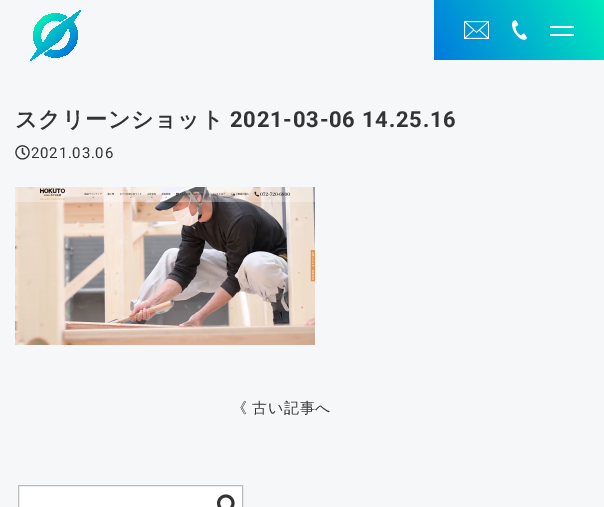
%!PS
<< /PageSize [604 507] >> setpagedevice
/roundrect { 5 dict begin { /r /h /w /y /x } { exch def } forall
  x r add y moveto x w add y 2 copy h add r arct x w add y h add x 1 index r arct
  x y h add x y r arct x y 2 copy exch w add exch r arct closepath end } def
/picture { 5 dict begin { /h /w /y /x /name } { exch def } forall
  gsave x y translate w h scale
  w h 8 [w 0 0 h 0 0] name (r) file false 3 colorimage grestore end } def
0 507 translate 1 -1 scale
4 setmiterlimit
0.965 0.969 0.973 setrgbcolor
0 0 604 507 rectfill
gsave newpath 81 10 moveto 51 31 lineto 43 44 lineto 35 32 47 16 60 21 curveto 59 22 lineto 67 17 lineto 46 4 23 30 38 49 curveto 30 61 lineto 60 40 lineto 68 27 lineto 76 39 64 55 51 50 curveto 52 49 lineto 44 54 lineto 65 67 88 41 73 22 curveto closepath clip newpath
<< /ShadingType 2 /ColorSpace /DeviceRGB /Coords [40 20 71 51] /Extend [true true] /Function << /FunctionType 2 /Domain [0 1] /C0 [0 0.925 0.737] /C1 [0 0.478 0.875] /N 1 >> >> shfill grestore
gsave newpath 434 0 moveto 604 0 lineto 604 60 lineto 434 60 lineto closepath clip newpath
<< /ShadingType 2 /ColorSpace /DeviceRGB /Coords [442 74 596 -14] /Extend [true true] /Function << /FunctionType 2 /Domain [0 1] /C0 [0 0.478 0.875] /C1 [0 0.925 0.737] /N 1 >> >> shfill grestore
(img1.rgb) 464 21 25 18 picture
(img2.rgb) 512 20 15 20 picture
1 setgray
550 26 24 2 1 roundrect fill
550 34 24 2 1 roundrect fill
/WenQuanYiZenHei-Bold [22 0 0 -22 0 0] selectfont
0.2 setgray
15 127 moveto 0.75 0 (スクリーンショット) ashow
/Roboto-Bold [22 0 0 -22 0 0] selectfont
230 127 moveto 0.75 0 (2021-03-06 14.25.16) ashow
(img3.rgb) 15 145 15 15 picture
/Roboto-Regular [15 0 0 -15 0 0] selectfont
31 158 moveto 0.75 0 (2021.03.06) ashow
(img4.rgb) 15 187 300 158 picture
/WenQuanYiZenHei-Medium [15 0 0 -15 0 0] selectfont
232 413 moveto -1 0 32 0.75 0 (《 古い記事へ) awidthshow
1 setgray
newpath 18.5 485.5 moveto 242.5 485.5 lineto 242.5 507.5 lineto 18.5 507.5 lineto closepath gsave fill grestore
0.733 setgray
stroke
(img5.rgb) 217 494 18 13 picture
showpage
